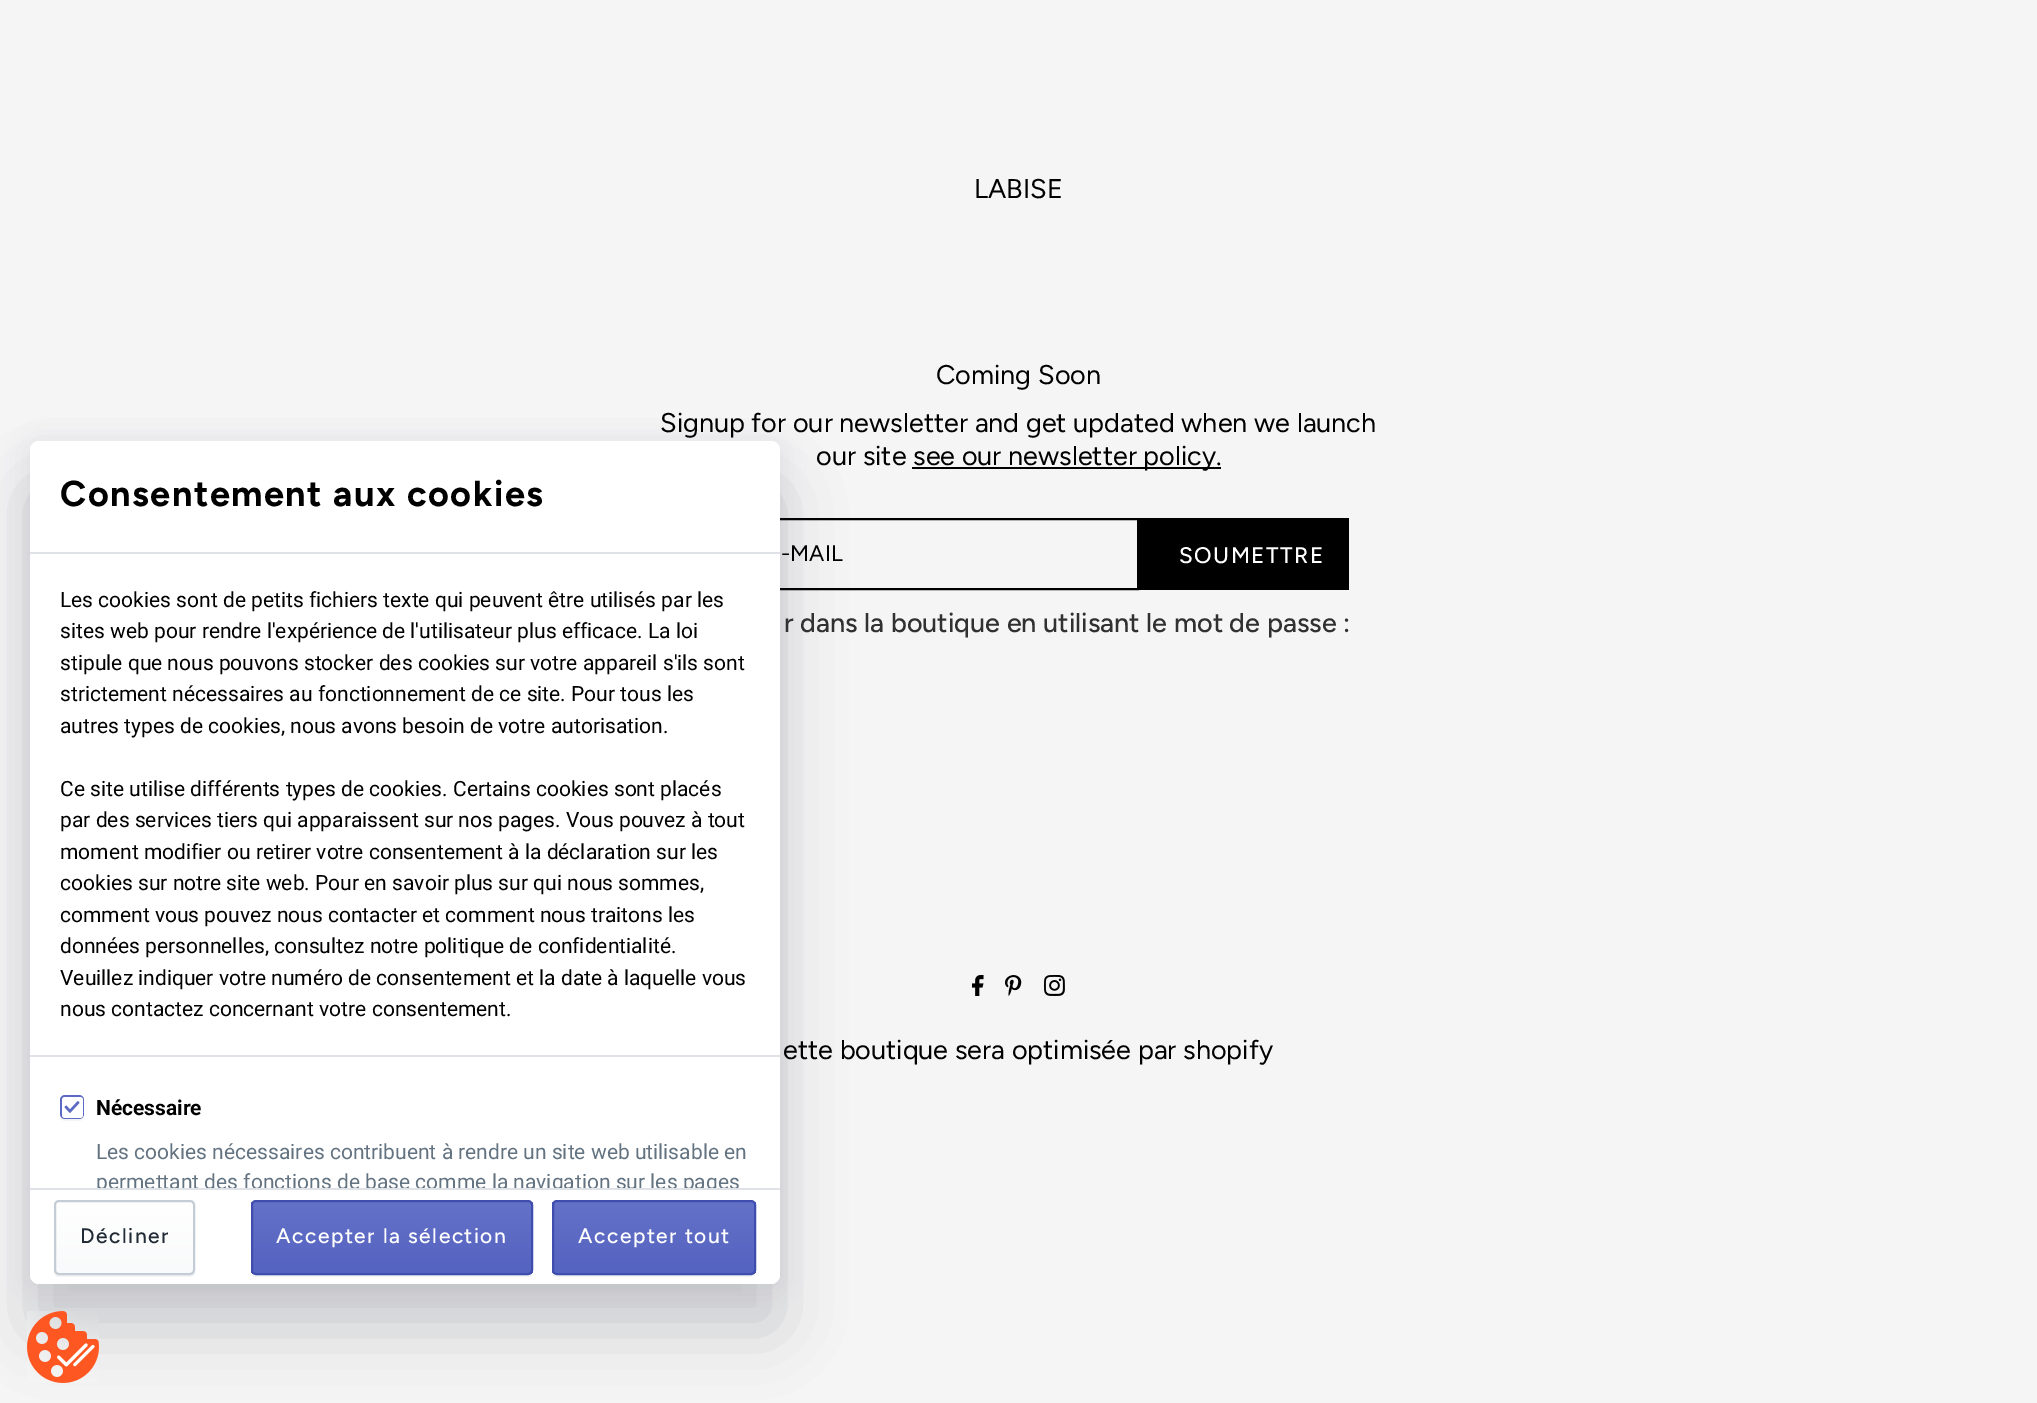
%!PS
<< /PageSize [2037 1403] /PageUsesTransparency true >> setpagedevice
/alpha { dup .setfillconstantalpha .setstrokeconstantalpha } def
/roundrect { 5 dict begin { /r /h /w /y /x } { exch def } forall
  x r add y moveto x w add y 2 copy h add r arct x w add y h add x 1 index r arct
  x y h add x y r arct x y 2 copy exch w add exch r arct closepath end } def
/shadow { 12 dict begin { /a /b /q /h /w /y /x } { exch def } forall gsave /was 0 def
  9 -2 -9 { dup b mul 4 div /e exch def 1 sub .425 mul 2.718 exch exp 1 add a .99 .min exch div /now exch def
    1 1 now sub 1 was sub div sub alpha /was now def
    w h .min e 2 mul add 0 gt { x e sub y e sub w e 2 mul add h e 2 mul add
      q e add b .6 mul add w h .min 2 div e add .min 0 .max roundrect fill } if } for grestore end } def
/picture { 5 dict begin { /h /w /y /x /name } { exch def } forall
  gsave x y translate w h scale
  w h 8 [w 0 0 h 0 0] name (r) file false 3 colorimage grestore end } def
0 .pushpdf14devicefilter
0 1403 translate 1 -1 scale
4 setmiterlimit
0.961 setgray
0 0 2037 1403 rectfill
0 setgray
2 setlinewidth
645 519 493 70 rectstroke
0.125 0.165 0.212 setrgbcolor
30 444 750 843 9 12 0.08 shadow
0.125 0.165 0.208 setrgbcolor
30 488 750 843 9 31 0.2 shadow
1 setgray
30 441 750 843 9 roundrect fill
0.875 0.89 0.91 setrgbcolor
30 552 750 2 rectfill
/Figtree-Bold [36 0 0 -36 0 0] selectfont
0 setgray
60 506 moveto 1.5 0 (Consentement aux cookies) ashow
0.875 0.89 0.91 setrgbcolor
30 1055 750 2 rectfill
/Roboto-Regular [21 0 0 -21 0 0] selectfont
0 setgray
60 607 moveto (Les cookies sont de petits fichiers texte qui peuvent être utilisés par les) show
60 638 moveto (sites web pour rendre l'expérience de l'utilisateur plus efficace. La loi) show
60 670 moveto (stipule que nous pouvons stocker des cookies sur votre appareil s'ils sont) show
60 701 moveto (strictement nécessaires au fonctionnement de ce site. Pour tous les) show
60 733 moveto (autres types de cookies, nous avons besoin de votre autorisation.) show
60 796 moveto (Ce site utilise différents types de cookies. Certains cookies sont placés) show
60 827 moveto (par des services tiers qui apparaissent sur nos pages. Vous pouvez à tout) show
60 859 moveto (moment modifier ou retirer votre consentement à la déclaration sur les) show
60 890 moveto (cookies sur notre site web. Pour en savoir plus sur qui nous sommes,) show
60 922 moveto (comment vous pouvez nous contacter et comment nous traitons les) show
60 953 moveto (données personnelles, consultez notre politique de confidentialité.) show
60 985 moveto (Veuillez indiquer votre numéro de consentement et la date à laquelle vous) show
60 1016 moveto (nous contactez concernant votre consentement.) show
0.953 0.957 0.957 setrgbcolor
newpath 60 1114.5 moveto 60 1122.5 66 1121 72 1121 curveto 78 1121 84 1122.5 84 1114.5 curveto 84 1120.5 75.5 1119 72 1119 curveto 68.5 1119 60 1120.5 60 1114.5 curveto closepath fill
0.361 0.416 0.769 setrgbcolor
60 1095 24 24 5 roundrect fill
1 setgray
62 1097 21 21 3 roundrect fill
(img1.rgb) 64 1101 16 12 picture
/Roboto-Bold [21 0 0 -21 0 0] selectfont
0 setgray
96 1115 moveto (Nécessaire) show
/Roboto-Regular [21 0 0 -21 0 0] selectfont
0.388 0.451 0.506 setrgbcolor
96 1159 moveto (Les cookies nécessaires contribuent à rendre un site web utilisable en) show
gsave
30 554 750 634 rectclip
96 1189 moveto (permettant des fonctions de base comme la navigation sur les pages) show
grestore
0.875 0.89 0.91 setrgbcolor
30 1188 750 2 rectfill
0.953 0.957 0.957 setrgbcolor
newpath 54 1270 moveto 54 1272 lineto 54 1275 56 1277 59 1277 curveto 190 1277 lineto 193 1277 195 1275 195 1272 curveto 195 1270 lineto 195 1273 193 1275 190 1275 curveto 58 1275 lineto 56 1275 54 1273 54 1270 curveto closepath fill
gsave
54 1200 141 75 5 roundrect clip newpath
gsave newpath 54 1202 moveto 195 1202 lineto 195 1274 lineto 54 1274 lineto closepath clip newpath
<< /ShadingType 2 /ColorSpace /DeviceRGB /Coords [125 1202 125 1274] /Extend [true true] /Function << /FunctionType 2 /Domain [0 1] /C0 [1 1 1] /C1 [0.976 0.98 0.984] /N 1 >> >> shfill grestore
grestore
0.769 0.804 0.835 setrgbcolor
55 1201 139 73 4 roundrect stroke
/Figtree-Medium [21 0 0 -21 0 0] selectfont
0.129 0.169 0.212 setrgbcolor
80 1243 moveto 1.5 0 (Décliner) ashow
0.953 0.957 0.957 setrgbcolor
newpath 251 1273 moveto 251 1275 253 1277 256 1277 curveto 528 1277 lineto 531 1277 533 1275 533 1272 curveto 533 1207 lineto 532 1205 lineto 532 1270 lineto 532 1273 530 1275 528 1275 curveto 255 1275 lineto 253 1275 252 1274 251 1273 curveto closepath fill
gsave
251 1200 282 75 5 roundrect clip newpath
gsave newpath 251 1202 moveto 533 1202 lineto 533 1274 lineto 251 1274 lineto closepath clip newpath
<< /ShadingType 2 /ColorSpace /DeviceRGB /Coords [392 1202 392 1274] /Extend [true true] /Function << /FunctionType 2 /Domain [0 1] /C0 [0.388 0.443 0.78] /C1 [0.333 0.388 0.757] /N 1 >> >> shfill grestore
grestore
0.404 0.455 0.784 setrgbcolor
newpath 255 1203 moveto 528 1203 lineto 530 1203 531 1204 531 1206 curveto 531 1205 lineto 531 1203 530 1202 528 1202 curveto 255 1202 lineto 253 1202 252 1203 252 1205 curveto 252 1206 lineto 252 1204 253 1203 255 1203 curveto closepath fill
0.247 0.306 0.682 setrgbcolor
252 1201 280 73 4 roundrect stroke
1 setgray
276 1243 moveto 1.5 0 (Accepter la sélection) ashow
0.953 0.957 0.957 setrgbcolor
newpath 552 1270 moveto 552 1273 553 1276 556 1277 curveto 751 1277 lineto 755 1277 756 1274 756 1270 curveto 756 1273 754 1275 752 1275 curveto 556 1275 lineto 554 1275 552 1273 552 1270 curveto closepath fill
gsave
552 1200 204 75 5 roundrect clip newpath
gsave newpath 552 1202 moveto 756 1202 lineto 756 1274 lineto 552 1274 lineto closepath clip newpath
<< /ShadingType 2 /ColorSpace /DeviceRGB /Coords [654 1202 654 1274] /Extend [true true] /Function << /FunctionType 2 /Domain [0 1] /C0 [0.388 0.443 0.78] /C1 [0.333 0.388 0.757] /N 1 >> >> shfill grestore
grestore
0.404 0.455 0.784 setrgbcolor
newpath 556 1203 moveto 719 1203 lineto 760 1203 754 1194 754 1228 curveto 754 1273 lineto 755 1273 755 1272 755 1271 curveto 755 1205 lineto 755 1203 754 1202 752 1202 curveto 557 1202 lineto 555 1202 554 1203 554 1205 curveto 554 1206 lineto 554 1204 555 1203 556 1203 curveto closepath fill
0.247 0.306 0.682 setrgbcolor
553 1201 202 73 4 roundrect stroke
1 setgray
578 1243 moveto 1.5 0 (Accepter tout) ashow
(img2.rgb) 27 1311 72 72 picture
/Figtree-Regular [27 0 0 -27 0 0] selectfont
0 setgray
974 198 moveto (LABISE) show
936 384 moveto (Coming Soon) show
660 432 moveto (Signup for our newsletter and get updated when we launch) show
816 465 moveto (our site) show
912 467 309 2 rectfill
913 465 moveto (see our newsletter policy.) show
/Figtree-Regular [22.5 0 0 -22.5 0 0] selectfont
781 561 moveto (-MAIL) show
1139 518 210 72 rectfill
/Figtree-Medium [22.5 0 0 -22.5 0 0] selectfont
1 setgray
1179 563 moveto 1.5 0 (SOUMETTRE) ashow
/Figtree-Medium [27 0 0 -27 0 0] selectfont
0.192 setgray
784 632 moveto (r dans la boutique en utilisant le mot de passe :) show
(img3.rgb) 972 975 12 21 picture
(img4.rgb) 1005 975 17 21 picture
(img5.rgb) 1044 975 21 21 picture
/Figtree-Regular [27 0 0 -27 0 0] selectfont
0 setgray
783 1059 moveto (ette boutique sera optimisée par shopify) show
.poppdf14devicefilter showpage
